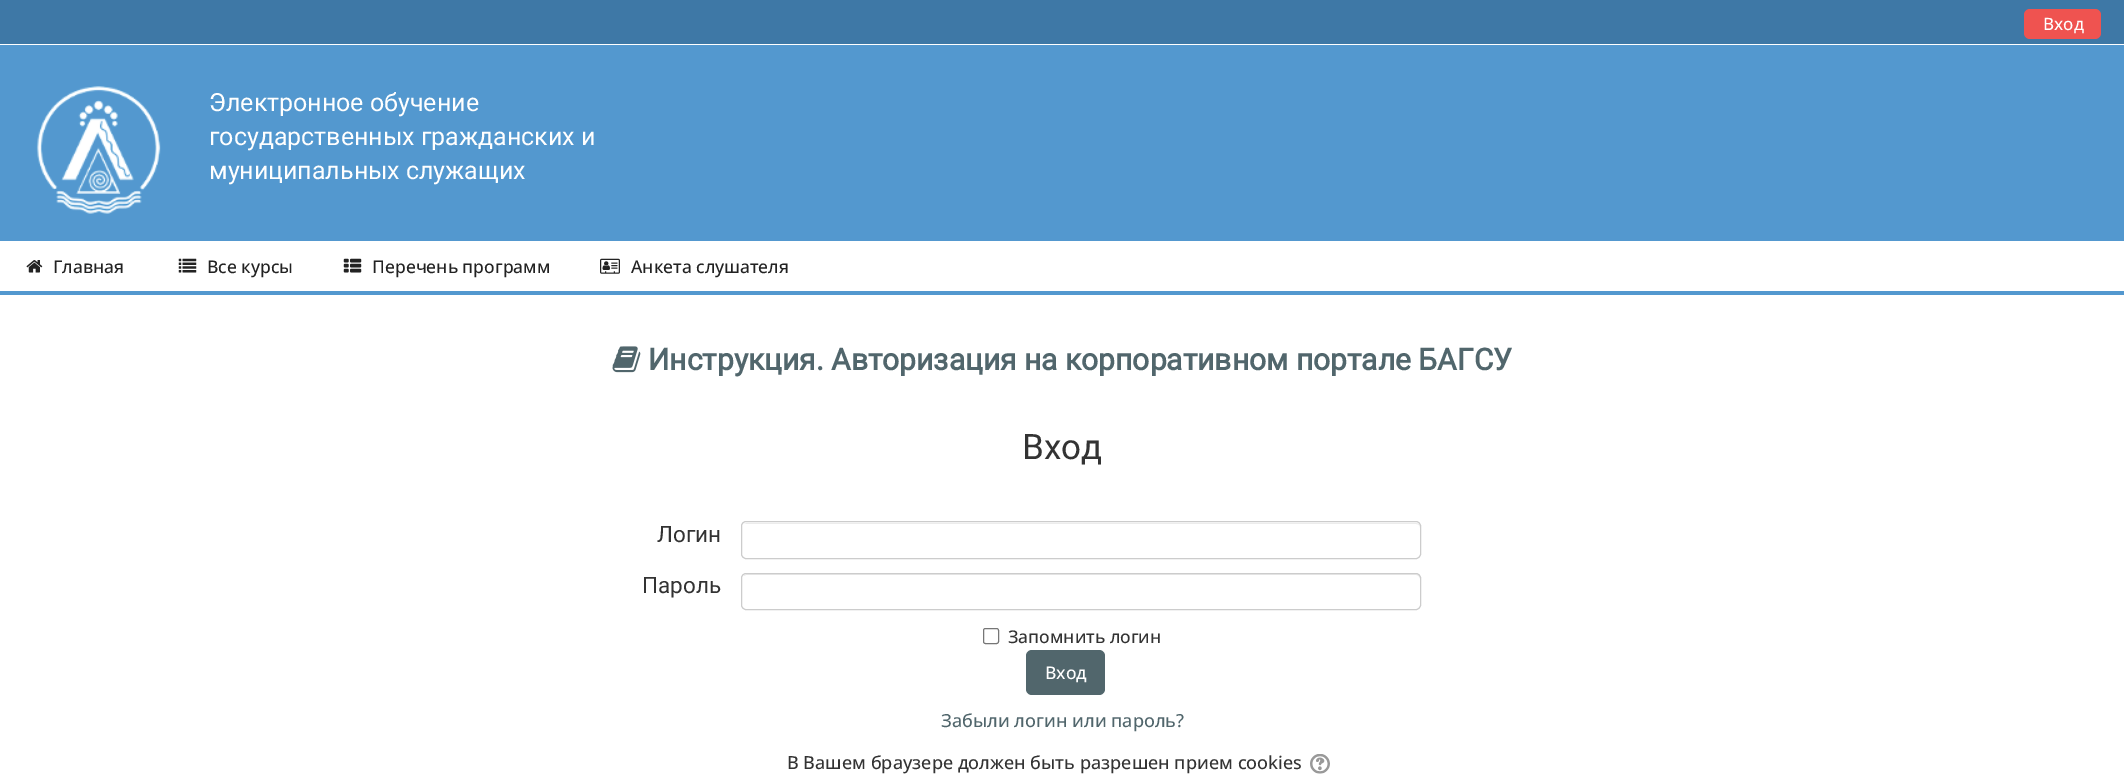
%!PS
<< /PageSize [2124 777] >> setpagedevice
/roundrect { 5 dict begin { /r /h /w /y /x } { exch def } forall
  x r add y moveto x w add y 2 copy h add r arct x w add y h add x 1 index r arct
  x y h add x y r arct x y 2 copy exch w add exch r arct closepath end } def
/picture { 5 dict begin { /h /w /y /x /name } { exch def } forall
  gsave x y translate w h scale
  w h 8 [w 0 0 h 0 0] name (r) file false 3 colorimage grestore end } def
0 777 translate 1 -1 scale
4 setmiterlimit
1 setgray
0 0 2124 777 rectfill
0.325 0.596 0.812 setrgbcolor
0 45 2124 196 rectfill
0.243 0.471 0.651 setrgbcolor
0 0 2124 44 rectfill
0.937 0.325 0.314 setrgbcolor
2024 9 77 30 6 roundrect fill
/OpenSans-Medium [17 0 0 -17 0 0] selectfont
1 setgray
2043 30 moveto (Вход) show
(img1.rgb) 36 86 125 128 picture
/Roboto-Regular [25 0 0 -25 0 0] selectfont
209 111 moveto (Электронное обучение) show
209 145 moveto (государственных гражданских и) show
209 179 moveto (муниципальных служащих) show
0.325 0.596 0.812 setrgbcolor
0 291 2124 4 rectfill
(img2.rgb) 26 260 17 13 picture
/OpenSans-Medium [17.5 0 0 -17.5 0 0] selectfont
0.133 setgray
53 273 moveto (Главная) show
(img3.rgb) 178 258 19 15 picture
207 273 moveto (Все курсы) show
(img4.rgb) 343 258 19 15 picture
372 273 moveto (Перечень программ) show
(img5.rgb) 600 258 20 16 picture
631 273 moveto (Анкета слушателя) show
(img6.rgb) 612 346 29 27 picture
/Roboto-Bold [30 0 0 -30 0 0] selectfont
0.318 0.4 0.424 setrgbcolor
648 370 moveto (Инструкция. Авторизация на корпоративном портале БАГСУ) show
/Roboto-Regular [35 0 0 -35 0 0] selectfont
0.2 setgray
1022 459 moveto (Вход) show
/Roboto-Regular [22.5 0 0 -22.5 0 0] selectfont
657 542 moveto (Логин) show
0.925 setgray
newpath 746 524 moveto 1416 524 lineto 1418 524 1420 525 1420 528 curveto 1420 527 lineto 1420 525 1418 523 1416 523 curveto 747 523 lineto 746 523 745 524 744 524 curveto closepath fill
0.8 setgray
741.5 521.5 679 37 4.5 roundrect stroke
0.2 setgray
642 593 moveto (Пароль) show
0.925 setgray
newpath 746 575 moveto 1416 575 lineto 1418 575 1420 577 1420 579 curveto 1420 578 lineto 1420 576 1418 574 1416 574 curveto 747 574 lineto 746 574 744 575 744 576 curveto closepath fill
0.8 setgray
741.5 573.5 679 36 4.5 roundrect stroke
0.463 setgray
983.5 628.5 15 15 2 roundrect stroke
/OpenSans-Medium [17.5 0 0 -17.5 0 0] selectfont
0.2 setgray
1008 643 moveto (Запомнить логин) show
0.318 0.4 0.424 setrgbcolor
1026 650 79 45 6 roundrect fill
1 setgray
1045 679 moveto (Вход) show
/OpenSans-Medium [18.05 0 0 -18.05 0 0] selectfont
0.318 0.4 0.424 setrgbcolor
941 727 moveto (Забыли логин или пароль?) show
0.2 setgray
787 769 moveto (В Вашем браузере должен быть разрешен прием cookies) show
(img7.rgb) 1310 754 20 20 picture
showpage
